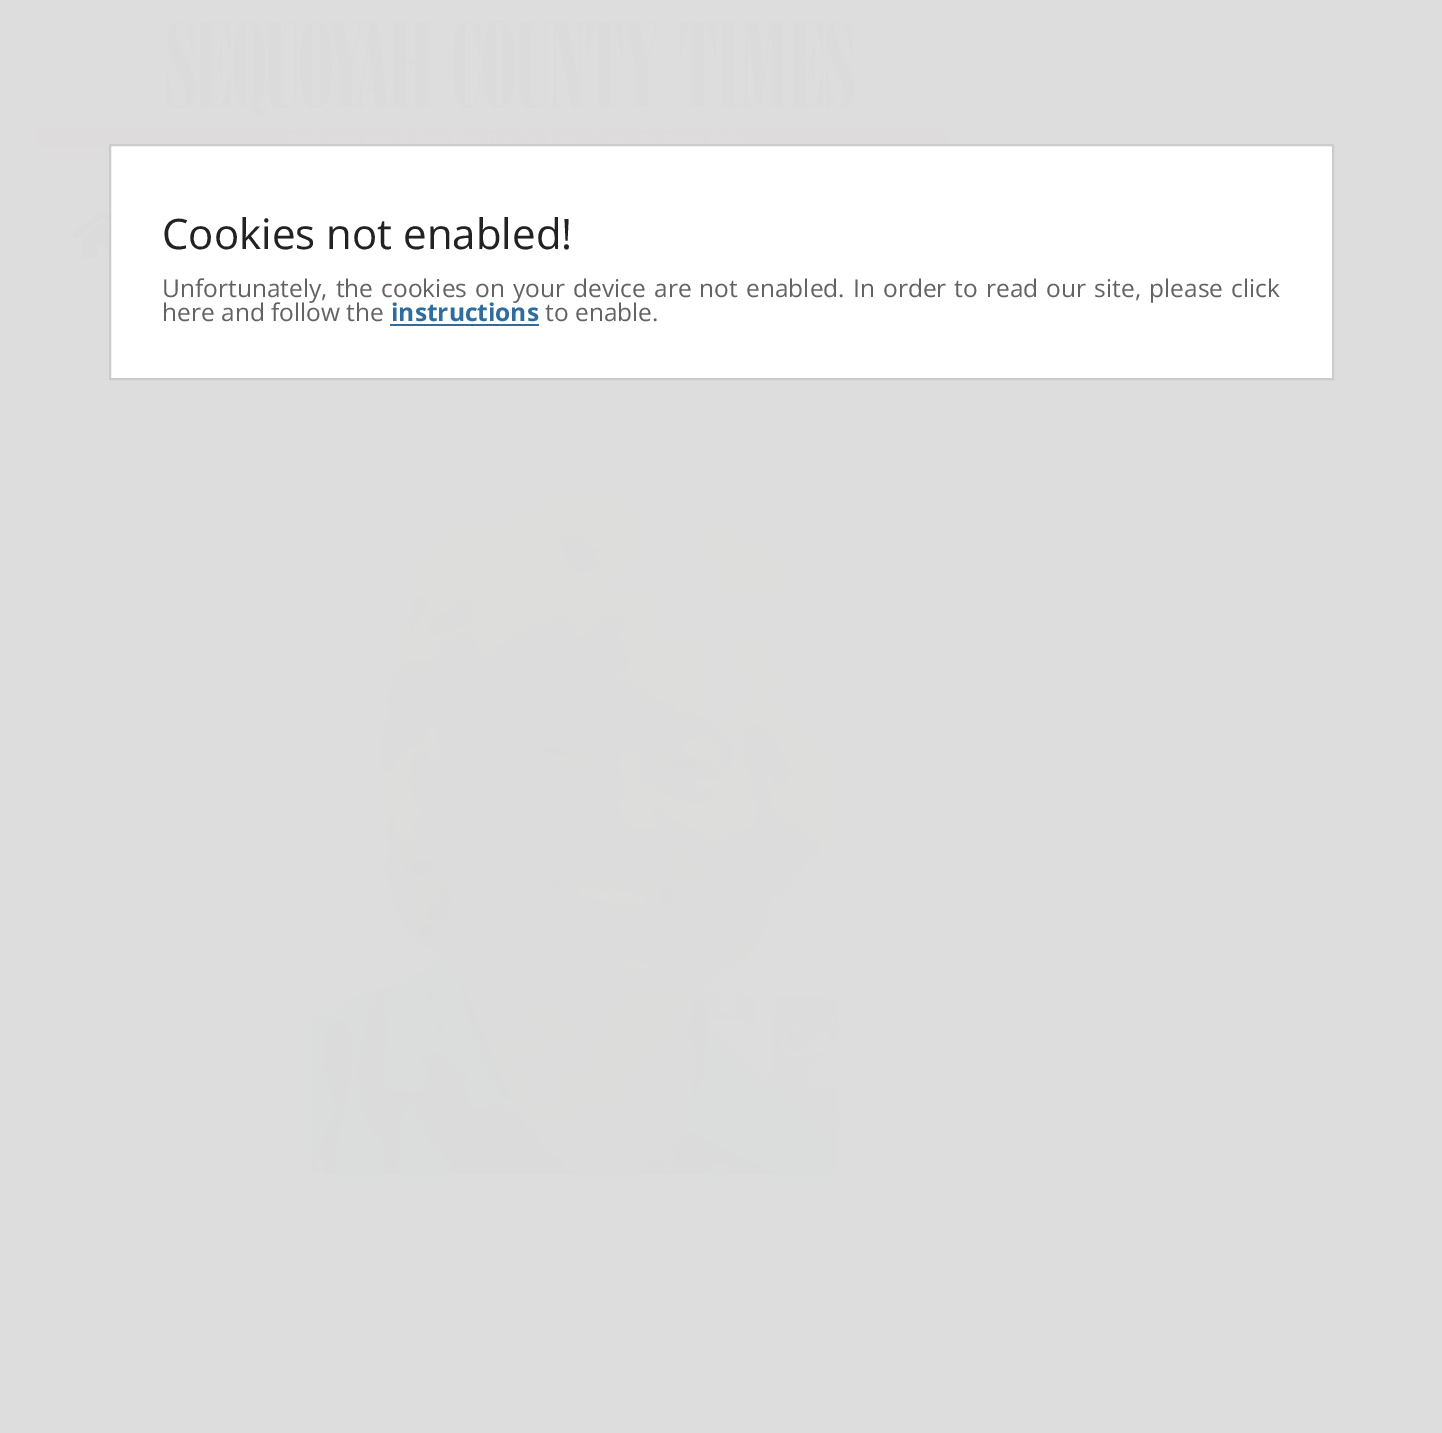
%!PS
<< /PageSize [1442 1433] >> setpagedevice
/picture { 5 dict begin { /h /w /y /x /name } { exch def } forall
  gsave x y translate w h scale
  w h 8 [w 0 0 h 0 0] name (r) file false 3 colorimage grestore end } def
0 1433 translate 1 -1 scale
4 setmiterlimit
0.867 setgray
0 0 1442 1433 rectfill
(img1.rgb) 36 18 914 131 picture
(img2.rgb) 72 210 37 49 picture
(img3.rgb) 311 458 528 717 picture
1 setgray
newpath 110 145 moveto 1333 145 lineto 1333 379 lineto 110 379 lineto closepath gsave fill grestore
0.8 setgray
2 setlinewidth
stroke
/OpenSans-Regular [42 0 0 -42 0 0] selectfont
0.133 setgray
162 249 moveto (Cookies not enabled!) show
/OpenSans-Regular [24.5 0 0 -24.5 0 0] selectfont
0.388 setgray
162 297 moveto 1.75 0 32 (Unfortunately, the cookies on your device are not enabled. In order to read our site, please click) widthshow
162 321 moveto (here and follow the) show
/OpenSans-Bold [24.5 0 0 -24.5 0 0] selectfont
0.18 0.427 0.616 setrgbcolor
391 321 moveto (instructions) show
390 324 149 2 rectfill
/OpenSans-Regular [24.5 0 0 -24.5 0 0] selectfont
0.388 setgray
545 321 moveto (to enable.) show
showpage
